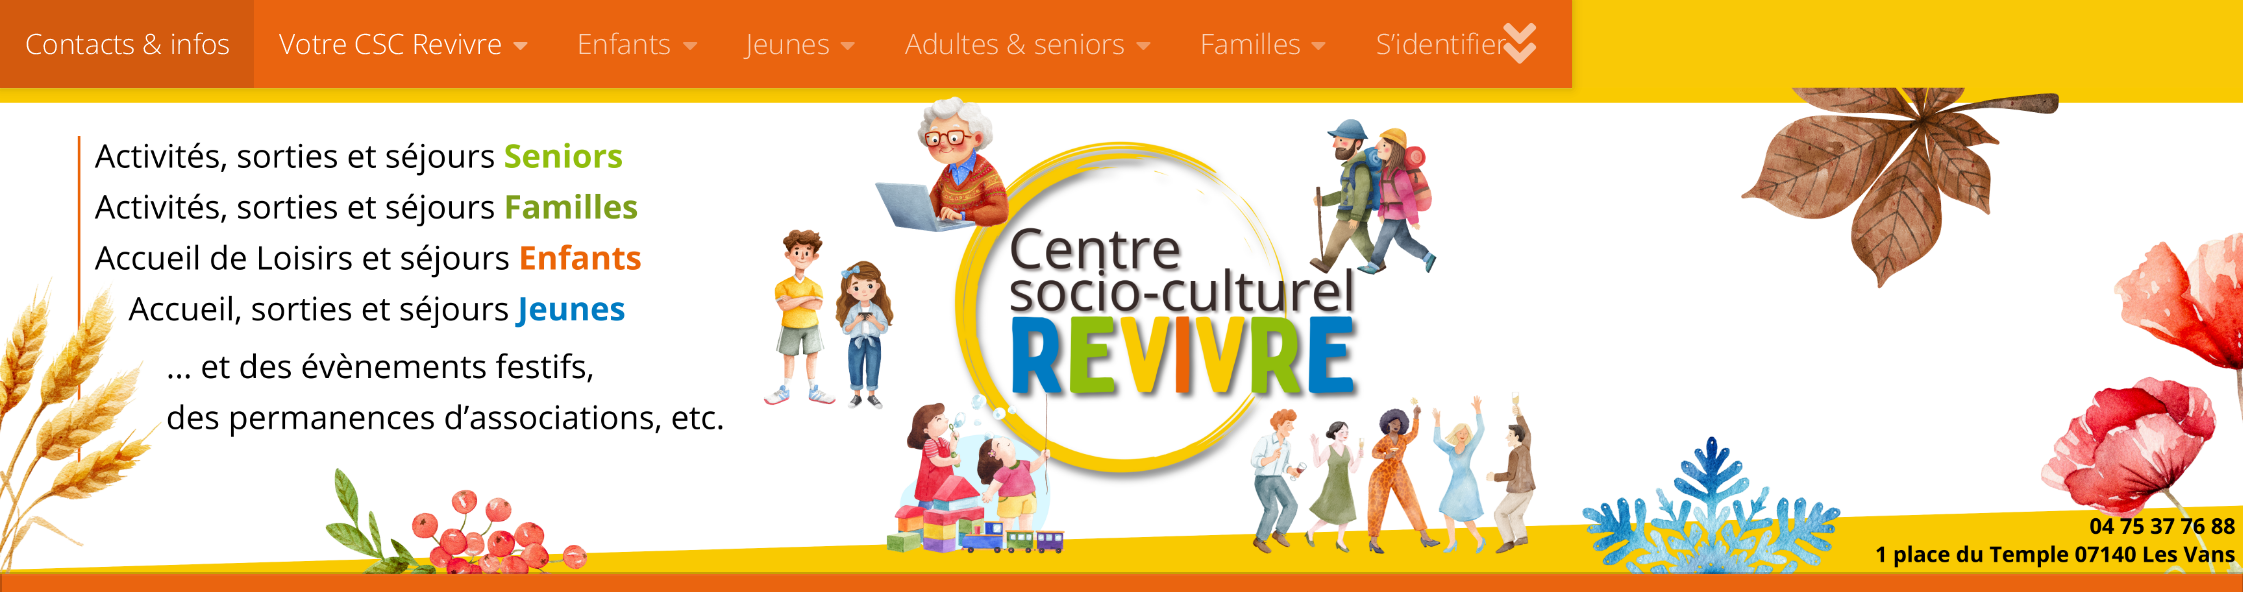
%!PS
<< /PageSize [2243 592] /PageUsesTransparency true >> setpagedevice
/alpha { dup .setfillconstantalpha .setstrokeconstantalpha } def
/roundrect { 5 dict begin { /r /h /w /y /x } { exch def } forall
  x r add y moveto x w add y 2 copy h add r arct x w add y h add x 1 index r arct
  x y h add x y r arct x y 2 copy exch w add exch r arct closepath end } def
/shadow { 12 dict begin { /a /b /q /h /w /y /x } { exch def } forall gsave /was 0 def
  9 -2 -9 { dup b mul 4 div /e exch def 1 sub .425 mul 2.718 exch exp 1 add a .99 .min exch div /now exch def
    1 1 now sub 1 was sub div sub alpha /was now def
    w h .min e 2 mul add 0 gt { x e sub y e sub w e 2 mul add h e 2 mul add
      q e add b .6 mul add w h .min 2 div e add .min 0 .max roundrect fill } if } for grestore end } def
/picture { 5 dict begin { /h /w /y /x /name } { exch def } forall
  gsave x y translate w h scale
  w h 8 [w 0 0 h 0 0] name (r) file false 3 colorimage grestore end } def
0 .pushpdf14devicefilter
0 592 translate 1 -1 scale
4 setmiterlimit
0.976 0.788 0.024 setrgbcolor
0 0 2243 592 rectfill
(img6.rgb) 0 87 2243 487 picture
0.15 alpha
1 setgray
newpath 0 88 moveto 0 89 lineto 1572 89 lineto 1572 2 lineto 1572 88 lineto closepath fill
1 alpha
0 setgray
0 0 1572 88 0 4.5 0.2 shadow
0.918 0.392 0.059 setrgbcolor
254 0 1318 88 rectfill
0.827 0.353 0.055 setrgbcolor
0 0 254 88 rectfill
/OpenSans-Light [28 0 0 -28 0 0] selectfont
1 setgray
25 54 moveto (Contacts & infos) show
279 54 moveto (Votre CSC Revivre) show
(img1.rgb) 513 42 15 8 picture
0.976 0.82 0.718 setrgbcolor
577 54 moveto (Enfants) show
(img2.rgb) 683 42 15 8 picture
746 54 moveto (Jeunes) show
(img3.rgb) 840 42 15 8 picture
905 54 moveto (Adultes & seniors) show
(img4.rgb) 1136 42 15 8 picture
1200 54 moveto (Familles) show
(img4.rgb) 1311 42 15 8 picture
1376 54 moveto (S’identifier) show
(img5.rgb) 1503 22 34 42 picture
0.2 alpha
0 setgray
newpath 0 572 moveto 0 574 lineto 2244 574 lineto 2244 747 lineto 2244 572 lineto closepath fill
1 alpha
0.918 0.392 0.059 setrgbcolor
2 576 2240 16 rectfill
0.922 0.424 0.106 setrgbcolor
0 574 2243 2 rectfill
0.733 0.314 0.047 setrgbcolor
2242 574 1 18 rectfill
0.745 0.349 0.094 setrgbcolor
2242 574 1 2 rectfill
0.733 0.314 0.047 setrgbcolor
0 574 2 18 rectfill
0.745 0.349 0.094 setrgbcolor
0 574 2 2 rectfill
.poppdf14devicefilter showpage
